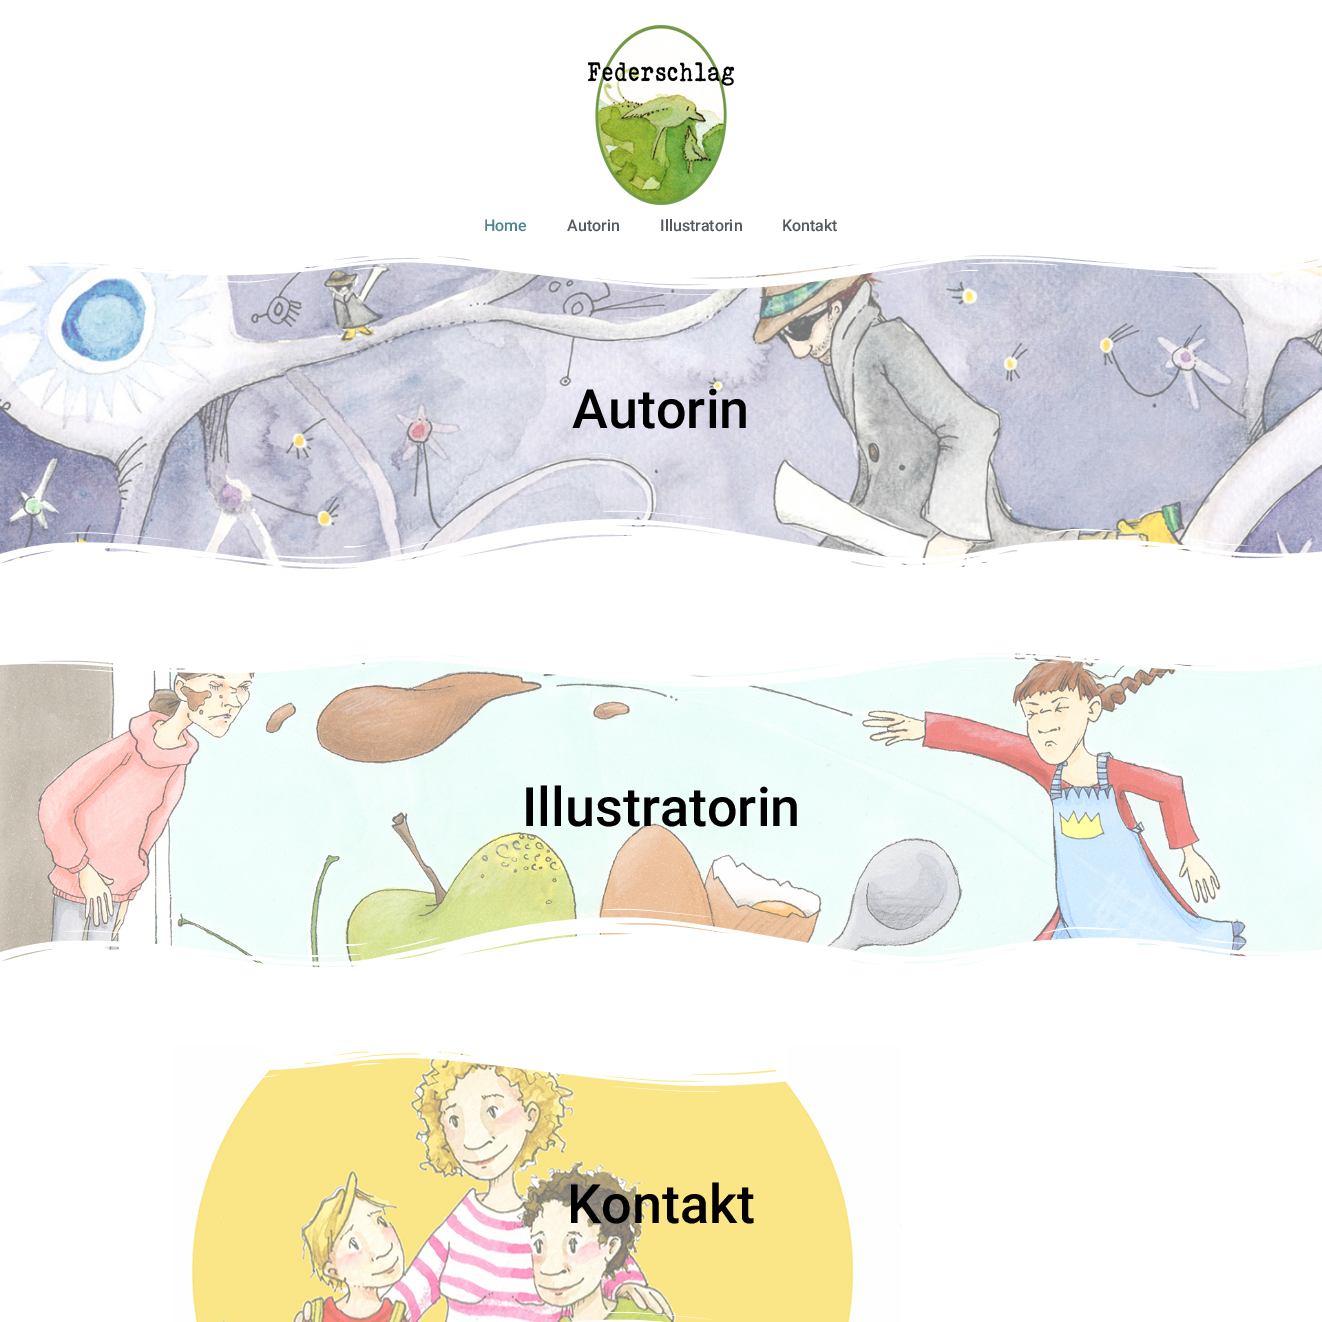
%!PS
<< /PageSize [1322 1322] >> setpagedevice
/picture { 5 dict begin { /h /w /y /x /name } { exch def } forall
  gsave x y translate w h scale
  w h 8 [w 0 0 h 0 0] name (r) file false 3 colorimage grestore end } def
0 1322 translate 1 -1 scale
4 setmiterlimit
1 setgray
0 0 1322 1322 rectfill
(img1.rgb) 588 25 146 180 picture
/Roboto-Medium [16 0 0 -16 0 0] selectfont
0.322 0.518 0.553 setrgbcolor
484 231 moveto (Home) show
0.329 0.349 0.373 setrgbcolor
567 231 moveto (Autorin) show
660 231 moveto (Illustratorin) show
782 231 moveto (Kontakt) show
(img2.rgb) 0 255 1322 314 picture
(img3.rgb) 0 250 1322 45 picture
/Roboto-Medium [54 0 0 -54 0 0] selectfont
0 setgray
572 428 moveto (Autorin) show
(img4.rgb) 0 510 1322 68 picture
(img5.rgb) 0 653 1322 315 picture
(img6.rgb) 0 648 1322 45 picture
522 826 moveto (Illustratorin) show
(img7.rgb) 0 908 1322 67 picture
(img8.rgb) 174 1045 728 277 picture
(img9.rgb) 263 1045 524 47 picture
567 1223 moveto (Kontakt) show
(img10.rgb) 567 1311 145 11 picture
showpage
